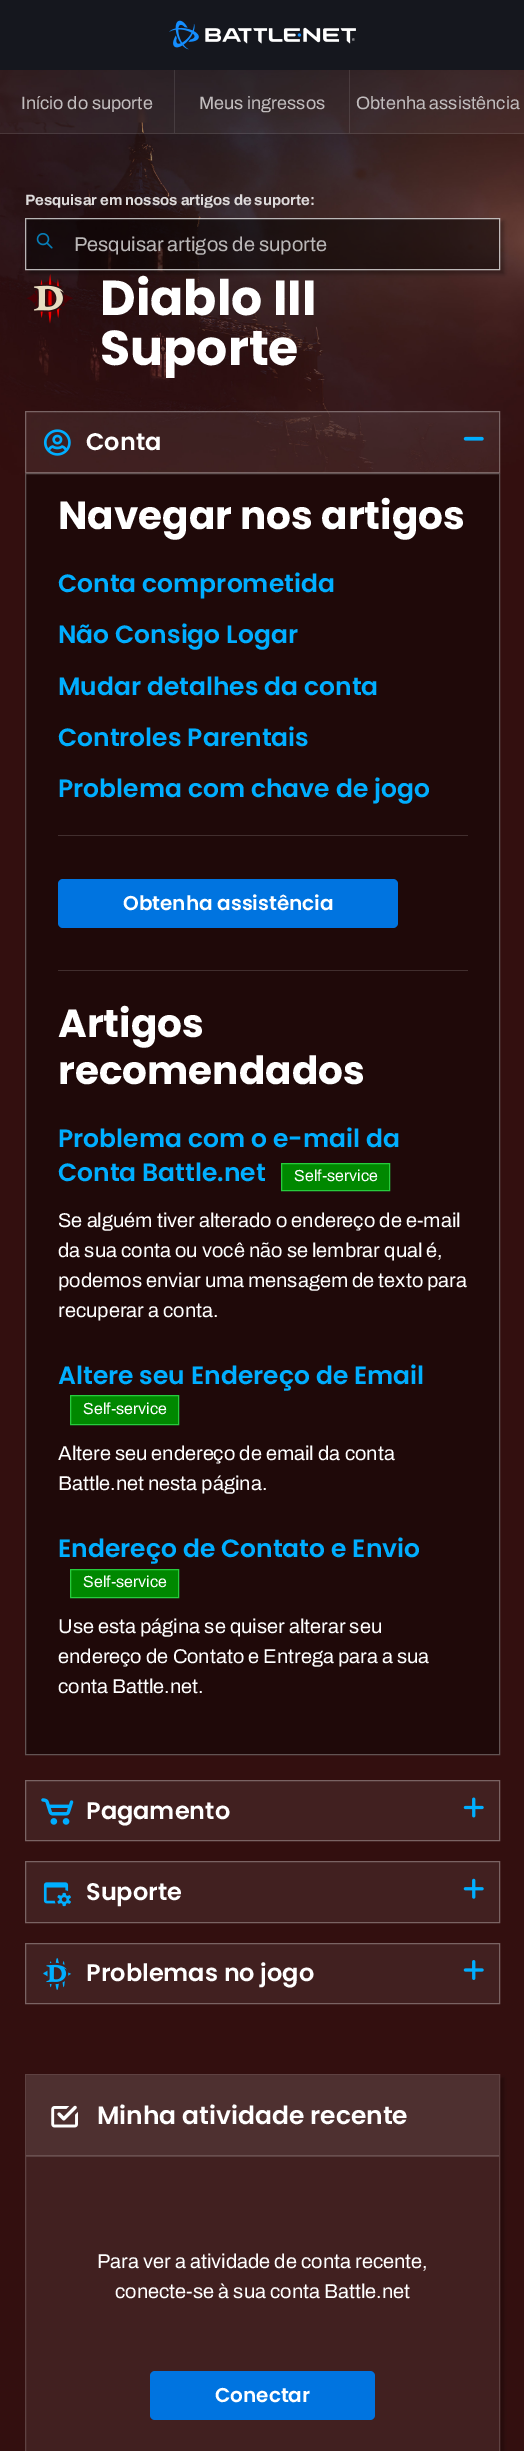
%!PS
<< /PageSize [524 2451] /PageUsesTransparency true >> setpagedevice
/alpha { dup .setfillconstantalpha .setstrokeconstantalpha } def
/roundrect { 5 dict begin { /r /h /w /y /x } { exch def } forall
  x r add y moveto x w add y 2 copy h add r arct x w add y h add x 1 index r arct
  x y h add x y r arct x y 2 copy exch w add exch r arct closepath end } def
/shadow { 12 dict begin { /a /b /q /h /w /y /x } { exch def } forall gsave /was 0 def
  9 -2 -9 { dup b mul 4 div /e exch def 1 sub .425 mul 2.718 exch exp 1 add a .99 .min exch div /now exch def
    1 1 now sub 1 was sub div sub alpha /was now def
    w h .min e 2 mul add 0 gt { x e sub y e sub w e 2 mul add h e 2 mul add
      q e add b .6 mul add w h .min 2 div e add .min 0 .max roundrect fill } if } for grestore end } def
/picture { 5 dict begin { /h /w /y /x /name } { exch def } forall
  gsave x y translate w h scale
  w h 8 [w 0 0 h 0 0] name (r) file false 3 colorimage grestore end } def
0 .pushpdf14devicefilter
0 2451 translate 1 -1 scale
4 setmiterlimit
0.2 0.059 0.059 setrgbcolor
0 0 524 2451 rectfill
0.082 0.09 0.118 setrgbcolor
0 0 524 70 rectfill
(img1.rgb) 169 20 187 30 picture
(img2.rgb) 0 70 524 440 picture
0.05 alpha
1 setgray
0 70 524 64 rectfill
0.1 alpha
0 133 524 1 rectfill
174 70 1 63 rectfill
/Archivo-Regular [18 0 0 -18 0 0] selectfont
1 alpha
0.757 0.737 0.741 setrgbcolor
21 109 moveto (Início do suporte) show
0.1 alpha
1 setgray
349 70 1 63 rectfill
1 alpha
0.757 0.737 0.741 setrgbcolor
199 109 moveto (Meus ingressos) show
356 109 moveto (Obtenha assistência) show
/Archivo-Bold [15 0 0 -15 0 0] selectfont
0.871 0.859 0.859 setrgbcolor
25 205 moveto (Pesquisar em nossos artigos de suporte:) show
0.5 alpha
0 setgray
25 218 475 52 rectfill
1 alpha
(img4.rgb) 26 274 47 50 picture
gsave
newpath 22 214 moveto 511 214 lineto 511 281 lineto 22 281 lineto closepath 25 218 moveto 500 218 lineto 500 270 lineto 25 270 lineto closepath eoclip newpath
29 221 475 53 0 2 0.3 shadow
grestore
0.7 alpha
1 setgray
25.5 218.5 474 51 rectstroke
1 alpha
(img3.rgb) 36 233 17 16 picture
/Archivo-Regular [20 0 0 -20 0 0] selectfont
0.729 0.718 0.718 setrgbcolor
74 251 moveto (Pesquisar artigos de suporte) show
/Poppins-Bold [49 0 0 -49 0 0] selectfont
1 setgray
100 315 moveto (Diablo III) show
100 365 moveto (Suporte) show
0.07 alpha
25 411 475 62 rectfill
0.3 alpha
25.5 411.5 474 61 rectstroke
1 alpha
(img5.rgb) 43 429 28 27 picture
/Poppins-SemiBold [24 0 0 -24 0 0] selectfont
86 450 moveto (Conta) show
(img6.rgb) 463 436 21 5 picture
0.122 0.035 0.035 setrgbcolor
newpath 25.5 473.5 moveto 499.5 473.5 lineto 499.5 1754.5 lineto 25.5 1754.5 lineto closepath gsave fill grestore
0.384 0.325 0.325 setrgbcolor
stroke
/Poppins-Bold [39 0 0 -39 0 0] selectfont
1 setgray
58 529 moveto (Navegar nos artigos) show
/Poppins-SemiBold [25 0 0 -25 0 0] selectfont
0 0.682 1 setrgbcolor
58 592 moveto (Conta comprometida) show
58 643 moveto (Não Consigo Logar) show
58 695 moveto (Mudar detalhes da conta) show
58 746 moveto (Controles Parentais) show
58 797 moveto (Problema com chave de jogo) show
0.255 0.18 0.18 setrgbcolor
58 835 410 1 rectfill
0 0.455 0.878 setrgbcolor
58 879 340 49 5 roundrect fill
/Poppins-SemiBold [20 0 0 -20 0 0] selectfont
1 setgray
123 910 moveto (Obtenha assistência) show
0.255 0.18 0.18 setrgbcolor
58 970 410 1 rectfill
/Poppins-Bold [39 0 0 -39 0 0] selectfont
1 setgray
58 1037 moveto (Artigos) show
58 1084 moveto (recomendados) show
/Poppins-SemiBold [25 0 0 -25 0 0] selectfont
0 0.682 1 setrgbcolor
58 1147 moveto (Problema com o e-mail da) show
58 1181 moveto (Conta Battle.net) show
0 0.533 0 setrgbcolor
newpath 281.5 1163.5 moveto 389.5 1163.5 lineto 389.5 1190.5 lineto 281.5 1190.5 lineto closepath gsave fill grestore
0.153 0.8 0.239 setrgbcolor
stroke
/Archivo-Regular [16 0 0 -16 0 0] selectfont
1 setgray
294 1181 moveto (Self-service) show
/Archivo-Regular [20 0 0 -20 0 0] selectfont
58 1227 moveto (Se alguém tiver alterado o endereço de e-mail) show
58 1257 moveto (da sua conta ou você não se lembrar qual é,) show
58 1287 moveto (podemos enviar uma mensagem de texto para) show
58 1317 moveto (recuperar a conta.) show
/Poppins-SemiBold [25 0 0 -25 0 0] selectfont
0 0.682 1 setrgbcolor
58 1384 moveto (Altere seu Endereço de Email) show
0 0.533 0 setrgbcolor
newpath 70.5 1395.5 moveto 178.5 1395.5 lineto 178.5 1424.5 lineto 70.5 1424.5 lineto closepath gsave fill grestore
0.153 0.8 0.239 setrgbcolor
stroke
/Archivo-Regular [16 0 0 -16 0 0] selectfont
1 setgray
83 1414 moveto (Self-service) show
/Archivo-Regular [20 0 0 -20 0 0] selectfont
58 1460 moveto (Altere seu endereço de email da conta) show
58 1490 moveto (Battle.net nesta página.) show
/Poppins-SemiBold [25 0 0 -25 0 0] selectfont
0 0.682 1 setrgbcolor
58 1557 moveto (Endereço de Contato e Envio) show
0 0.533 0 setrgbcolor
newpath 70.5 1569.5 moveto 178.5 1569.5 lineto 178.5 1597.5 lineto 70.5 1597.5 lineto closepath gsave fill grestore
0.153 0.8 0.239 setrgbcolor
stroke
/Archivo-Regular [16 0 0 -16 0 0] selectfont
1 setgray
83 1587 moveto (Self-service) show
/Archivo-Regular [20 0 0 -20 0 0] selectfont
58 1633 moveto (Use esta página se quiser alterar seu) show
58 1663 moveto (endereço de Contato e Entrega para a sua) show
58 1693 moveto (conta Battle.net.) show
0.255 0.125 0.125 setrgbcolor
newpath 25.5 1780.5 moveto 499.5 1780.5 lineto 499.5 1840.5 lineto 25.5 1840.5 lineto closepath gsave fill grestore
0.478 0.388 0.388 setrgbcolor
stroke
(img7.rgb) 41 1798 33 27 picture
/Poppins-SemiBold [24 0 0 -24 0 0] selectfont
1 setgray
86 1819 moveto (Pagamento) show
(img8.rgb) 463 1797 21 21 picture
0.255 0.125 0.125 setrgbcolor
newpath 25.5 1861.5 moveto 499.5 1861.5 lineto 499.5 1922.5 lineto 25.5 1922.5 lineto closepath gsave fill grestore
0.478 0.388 0.388 setrgbcolor
stroke
(img9.rgb) 43 1882 28 25 picture
1 setgray
86 1900 moveto (Suporte) show
(img10.rgb) 463 1878 21 21 picture
0.255 0.125 0.125 setrgbcolor
newpath 25.5 1943.5 moveto 499.5 1943.5 lineto 499.5 2003.5 lineto 25.5 2003.5 lineto closepath gsave fill grestore
0.478 0.388 0.388 setrgbcolor
stroke
(img11.rgb) 43 1958 29 32 picture
1 setgray
86 1981 moveto (Problemas no jogo) show
(img12.rgb) 463 1960 21 20 picture
0 setgray
29 2078 475 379 0 2 0.3 shadow
0.255 0.125 0.125 setrgbcolor
26 2157 473 294 rectfill
0.369 0.255 0.255 setrgbcolor
25.5 2074.5 474 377 rectstroke
0.306 0.188 0.188 setrgbcolor
26 2075 473 80 rectfill
0.412 0.31 0.31 setrgbcolor
26 2155 473 1 rectfill
(img13.rgb) 51 2105 27 23 picture
/Poppins-SemiBold [25 0 0 -25 0 0] selectfont
1 setgray
97 2124 moveto (Minha atividade recente) show
0.365 0.255 0.255 setrgbcolor
26 2156 473 1 rectfill
/Archivo-Regular [20 0 0 -20 0 0] selectfont
1 setgray
97 2268 moveto (Para ver a atividade de conta recente,) show
115 2298 moveto (conecte-se à sua conta Battle.net) show
0 0.455 0.878 setrgbcolor
150 2371 225 49 5 roundrect fill
/Poppins-SemiBold [20 0 0 -20 0 0] selectfont
1 setgray
215 2402 moveto (Conectar) show
.poppdf14devicefilter showpage
